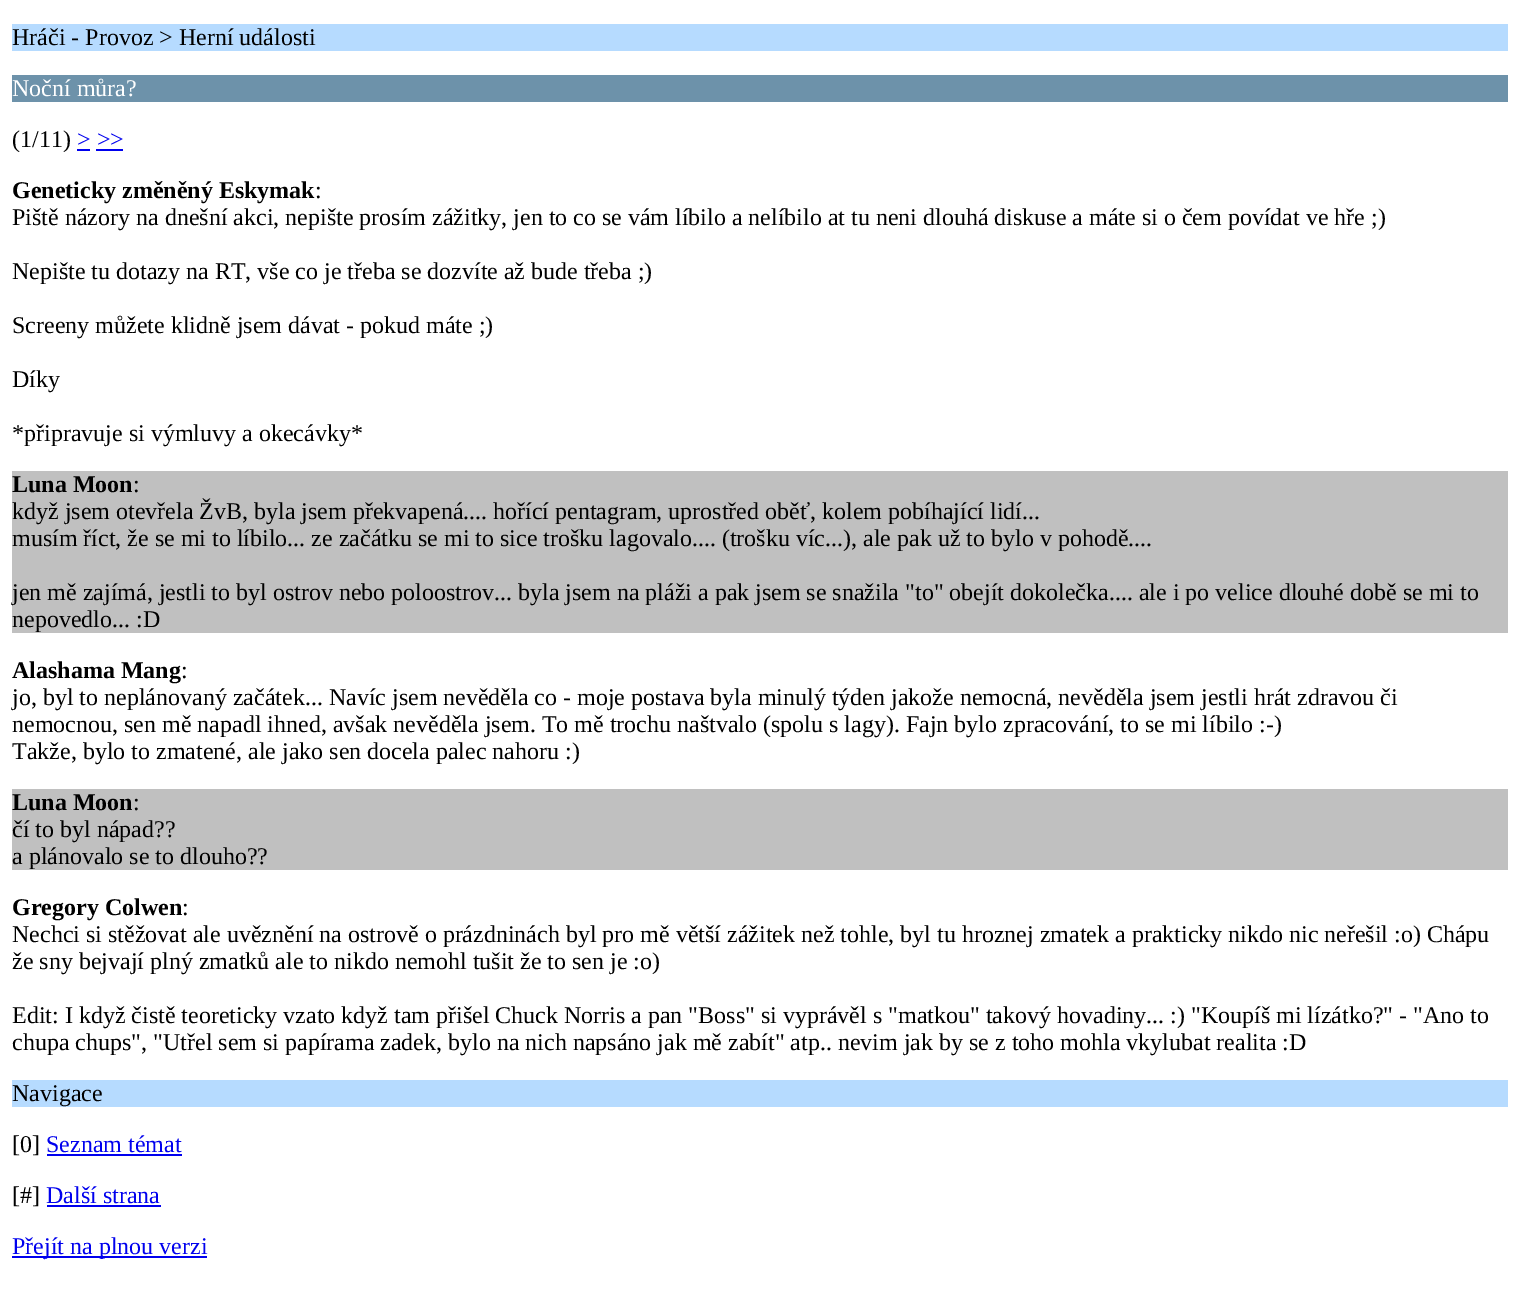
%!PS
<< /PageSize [1519 1300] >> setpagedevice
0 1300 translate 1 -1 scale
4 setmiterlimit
1 setgray
0 0 1519 1300 rectfill
0.714 0.859 1 setrgbcolor
12 24 1496 27 rectfill
/LiberationSerif-Regular [24 0 0 -24 0 0] selectfont
0 setgray
12 45 moveto (Hráči - Provoz > Herní události) show
0.427 0.573 0.667 setrgbcolor
12 75 1496 27 rectfill
1 setgray
12 96 moveto (Noční můra?) show
0 setgray
12 147 moveto (\(1/11\)) show
0 0 0.933 setrgbcolor
77 147 moveto (> >>) show
77 149 13 2 rectfill
96 149 27 2 rectfill
/LiberationSerif-Bold [24 0 0 -24 0 0] selectfont
0 setgray
12 198 moveto (Geneticky změněný Eskymak) show
/LiberationSerif-Regular [24 0 0 -24 0 0] selectfont
315 198 moveto (:) show
12 225 moveto (Piště názory na dnešní akci, nepište prosím zážitky, jen to co se vám líbilo a nelíbilo at tu neni dlouhá diskuse a máte si o čem povídat ve hře ;\)) show
12 279 moveto (Nepište tu dotazy na RT, vše co je třeba se dozvíte až bude třeba ;\)) show
12 333 moveto (Screeny můžete klidně jsem dávat - pokud máte ;\)) show
12 387 moveto (Díky) show
12 441 moveto (*připravuje si výmluvy a okecávky*) show
0.753 setgray
12 471 1496 162 rectfill
/LiberationSerif-Bold [24 0 0 -24 0 0] selectfont
0 setgray
12 492 moveto (Luna Moon) show
/LiberationSerif-Regular [24 0 0 -24 0 0] selectfont
133 492 moveto (:) show
12 519 moveto (když jsem otevřela ŽvB, byla jsem překvapená.... hořící pentagram, uprostřed oběť, kolem pobíhající lidí...) show
12 546 moveto (musím říct, že se mi to líbilo... ze začátku se mi to sice trošku lagovalo.... \(trošku víc...\), ale pak už to bylo v pohodě....) show
12 600 moveto (jen mě zajímá, jestli to byl ostrov nebo poloostrov... byla jsem na pláži a pak jsem se snažila "to" obejít dokolečka.... ale i po velice dlouhé době se mi to) show
12 627 moveto (nepovedlo... :D) show
/LiberationSerif-Bold [24 0 0 -24 0 0] selectfont
12 678 moveto (Alashama Mang) show
/LiberationSerif-Regular [24 0 0 -24 0 0] selectfont
181 678 moveto (:) show
12 705 moveto (jo, byl to neplánovaný začátek... Navíc jsem nevěděla co - moje postava byla minulý týden jakože nemocná, nevěděla jsem jestli hrát zdravou či) show
12 732 moveto (nemocnou, sen mě napadl ihned, avšak nevěděla jsem. To mě trochu naštvalo \(spolu s lagy\). Fajn bylo zpracování, to se mi líbilo :-\)) show
12 759 moveto (Takže, bylo to zmatené, ale jako sen docela palec nahoru :\)) show
0.753 setgray
12 789 1496 81 rectfill
/LiberationSerif-Bold [24 0 0 -24 0 0] selectfont
0 setgray
12 810 moveto (Luna Moon) show
/LiberationSerif-Regular [24 0 0 -24 0 0] selectfont
133 810 moveto (:) show
12 837 moveto (čí to byl nápad??) show
12 864 moveto (a plánovalo se to dlouho??) show
/LiberationSerif-Bold [24 0 0 -24 0 0] selectfont
12 915 moveto (Gregory Colwen) show
/LiberationSerif-Regular [24 0 0 -24 0 0] selectfont
182 915 moveto (:) show
12 942 moveto (Nechci si stěžovat ale uvěznění na ostrově o prázdninách byl pro mě větší zážitek než tohle, byl tu hroznej zmatek a prakticky nikdo nic neřešil :o\) Chápu) show
12 969 moveto (že sny bejvají plný zmatků ale to nikdo nemohl tušit že to sen je :o\)) show
12 1023 moveto (Edit: I když čistě teoreticky vzato když tam přišel Chuck Norris a pan "Boss" si vyprávěl s "matkou" takový hovadiny... :\) "Koupíš mi lízátko?" - "Ano to) show
12 1050 moveto (chupa chups", "Utřel sem si papírama zadek, bylo na nich napsáno jak mě zabít" atp.. nevim jak by se z toho mohla vkylubat realita :D) show
0.714 0.859 1 setrgbcolor
12 1080 1496 27 rectfill
0 setgray
12 1101 moveto (Navigace) show
12 1152 moveto ([0]) show
0 0 0.933 setrgbcolor
46 1152 moveto (Seznam témat) show
47 1154 135 2 rectfill
0 setgray
12 1203 moveto ([#]) show
0 0 0.933 setrgbcolor
46 1203 moveto (Další strana) show
47 1205 114 2 rectfill
12 1256 195 2 rectfill
12 1254 moveto (Přejít na plnou verzi) show
showpage
